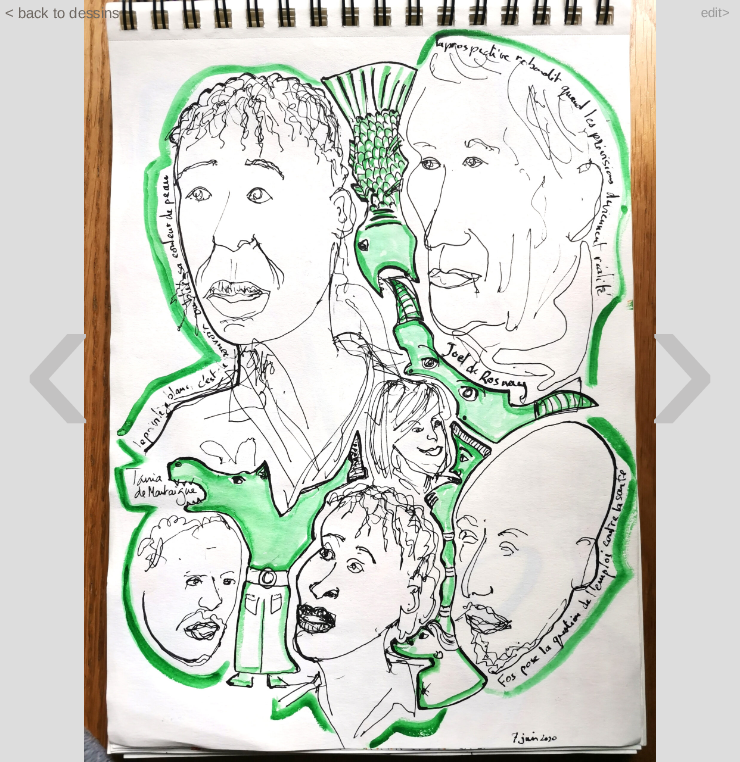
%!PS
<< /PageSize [740 762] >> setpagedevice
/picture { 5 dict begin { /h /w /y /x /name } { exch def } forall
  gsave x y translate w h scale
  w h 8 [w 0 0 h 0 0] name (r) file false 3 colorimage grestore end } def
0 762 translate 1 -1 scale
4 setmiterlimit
0.867 setgray
0 0 740 762 rectfill
(img1.rgb) 84 0 572 762 picture
/LiberationSans-Regular [14.75 0 0 -14.75 0 0] selectfont
0.431 0.408 0.384 setrgbcolor
5 18 moveto (< back to dessins) show
/LiberationSans-Regular [13 0 0 -13 0 0] selectfont
0.6 setgray
701 17 moveto (edit>) show
/LiberationSans-Regular [229 0 0 -229 0 0] selectfont
0.765 0.761 0.761 setrgbcolor
20 439 moveto (‹) show
644 439 moveto (›) show
showpage
